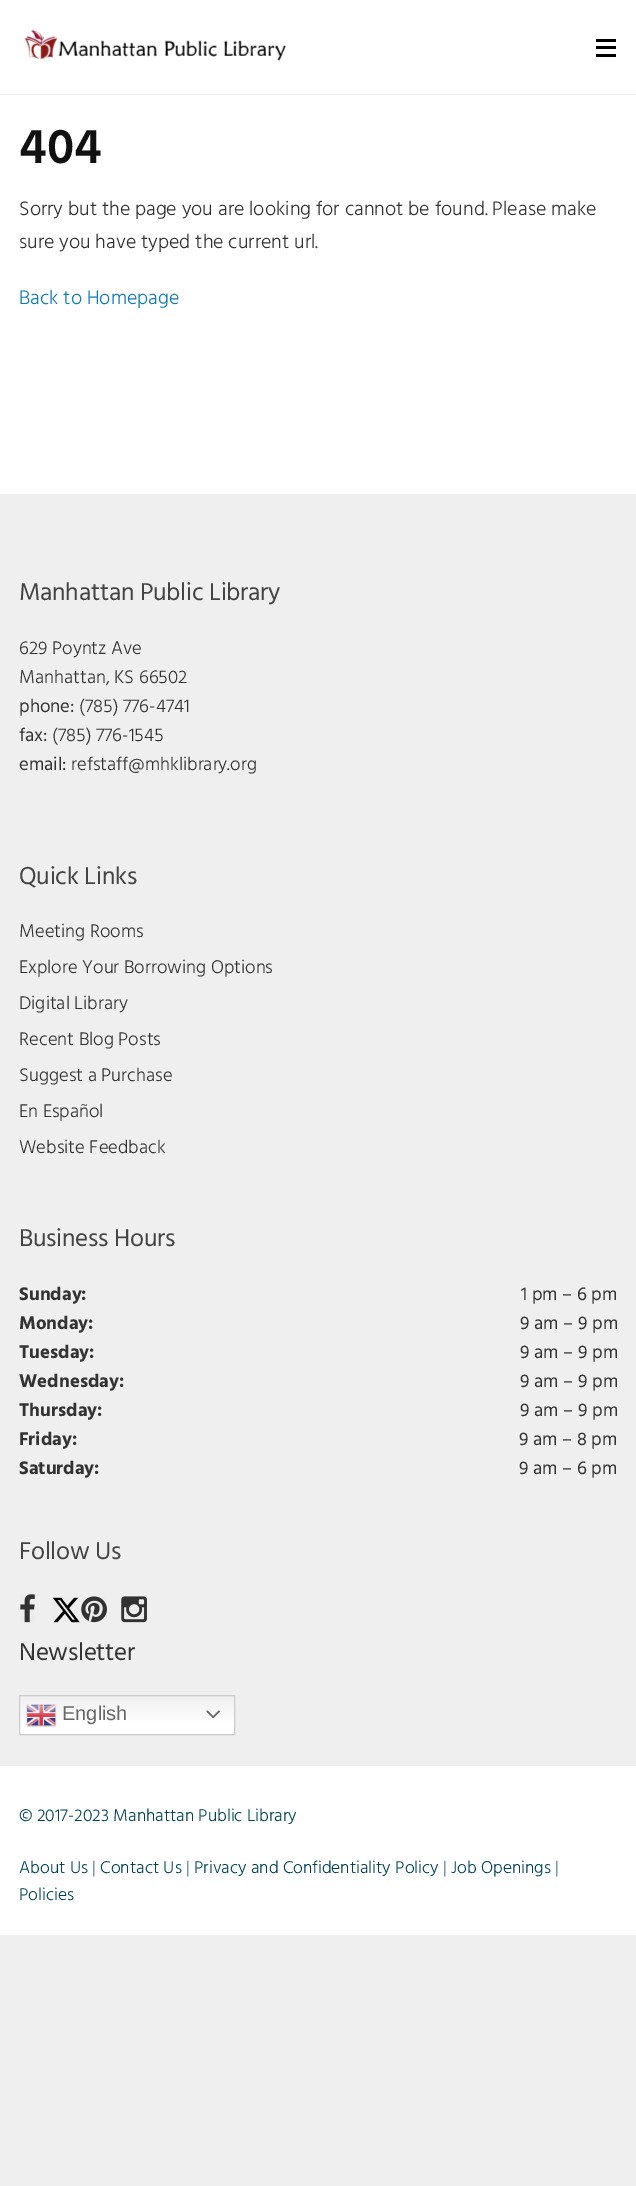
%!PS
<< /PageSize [636 2186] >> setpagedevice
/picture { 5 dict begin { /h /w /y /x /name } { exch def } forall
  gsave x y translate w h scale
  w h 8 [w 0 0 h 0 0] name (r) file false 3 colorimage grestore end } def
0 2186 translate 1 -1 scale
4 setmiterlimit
0.937 setgray
0 0 636 2186 rectfill
1 setgray
0 0 636 494 rectfill
0.933 setgray
0 94 636 1 rectfill
(img1.rgb) 24 29 262 32 picture
0 setgray
596 39 20 3 rectfill
596 46 20 3 rectfill
596 54 20 3 rectfill
/Hind-SemiBold [50 0 0 -50 0 0] selectfont
0.067 setgray
19 163 moveto (404) show
/Hind-Light [20 0 0 -20 0 0] selectfont
0.2 setgray
19 215 moveto (Sorry but the page you are looking for cannot be found. Please make) show
19 248 moveto (sure you have typed the current url.) show
0.067 0.478 0.737 setrgbcolor
19 304 moveto (Back to Homepage) show
/Hind-Regular [25 0 0 -25 0 0] selectfont
0.267 setgray
19 600 moveto -0.25 0 (Manhattan Public Library) ashow
/Hind-Light [18.75 0 0 -18.75 0 0] selectfont
0.2 setgray
19 654 moveto (629 Poyntz Ave) show
19 683 moveto (Manhattan, KS 66502) show
/Hind-Regular [18.75 0 0 -18.75 0 0] selectfont
19 712 moveto (phone:) show
/Hind-Light [18.75 0 0 -18.75 0 0] selectfont
79 712 moveto (\(785\) 776-4741) show
/Hind-Regular [18.75 0 0 -18.75 0 0] selectfont
19 741 moveto (fax:) show
/Hind-Light [18.75 0 0 -18.75 0 0] selectfont
52 741 moveto (\(785\) 776-1545) show
/Hind-Regular [18.75 0 0 -18.75 0 0] selectfont
19 770 moveto (email:) show
/Hind-Light [18.75 0 0 -18.75 0 0] selectfont
71 770 moveto (refstaff@mhklibrary.org) show
/Hind-Regular [25 0 0 -25 0 0] selectfont
0.267 setgray
19 884 moveto -0.25 0 (Quick Links) ashow
/Hind-Light [18.75 0 0 -18.75 0 0] selectfont
0.2 setgray
19 937 moveto (Meeting Rooms) show
19 973 moveto (Explore Your Borrowing Options) show
19 1009 moveto (Digital Library) show
19 1045 moveto (Recent Blog Posts) show
19 1081 moveto (Suggest a Purchase) show
19 1117 moveto (En Español) show
19 1153 moveto (Website Feedback) show
/Hind-Regular [25 0 0 -25 0 0] selectfont
0.267 setgray
19 1246 moveto -0.25 0 (Business Hours) ashow
/Hind-Bold [18.75 0 0 -18.75 0 0] selectfont
0.2 setgray
19 1300 moveto (Sunday:) show
/Hind-Regular [18.75 0 0 -18.75 0 0] selectfont
521 1300 moveto (1 pm – 6 pm) show
/Hind-Bold [18.75 0 0 -18.75 0 0] selectfont
19 1329 moveto (Monday:) show
/Hind-Regular [18.75 0 0 -18.75 0 0] selectfont
520 1329 moveto (9 am – 9 pm) show
/Hind-Bold [18.75 0 0 -18.75 0 0] selectfont
19 1358 moveto (Tuesday:) show
/Hind-Regular [18.75 0 0 -18.75 0 0] selectfont
520 1358 moveto (9 am – 9 pm) show
/Hind-Bold [18.75 0 0 -18.75 0 0] selectfont
19 1387 moveto (Wednesday:) show
/Hind-Regular [18.75 0 0 -18.75 0 0] selectfont
520 1387 moveto (9 am – 9 pm) show
/Hind-Bold [18.75 0 0 -18.75 0 0] selectfont
19 1416 moveto (Thursday:) show
/Hind-Regular [18.75 0 0 -18.75 0 0] selectfont
520 1416 moveto (9 am – 9 pm) show
/Hind-Bold [18.75 0 0 -18.75 0 0] selectfont
19 1445 moveto (Friday:) show
/Hind-Regular [18.75 0 0 -18.75 0 0] selectfont
519 1445 moveto (9 am – 8 pm) show
/Hind-Bold [18.75 0 0 -18.75 0 0] selectfont
19 1474 moveto (Saturday:) show
/Hind-Regular [18.75 0 0 -18.75 0 0] selectfont
519 1474 moveto (9 am – 6 pm) show
/Hind-Regular [25 0 0 -25 0 0] selectfont
0.267 setgray
19 1559 moveto -0.25 0 (Follow Us) ashow
(img2.rgb) 20 1594 15 29 picture
(img3.rgb) 52 1597 28 26 picture
(img4.rgb) 81 1596 26 27 picture
(img5.rgb) 121 1596 26 27 picture
0.2 setgray
19 1660 moveto -0.25 0 (Newsletter) ashow
gsave newpath 20 1699 moveto 234 1699 lineto 234 1734 lineto 20 1734 lineto closepath clip newpath
<< /ShadingType 2 /ColorSpace /DeviceRGB /Coords [127 1695 127 1735] /Extend [true true] /Function << /FunctionType 3 /Domain [0 1] /Functions [<< /FunctionType 2 /Domain [0 1] /C0 [0.937 0.937 0.937] /C1 [1 1 1] /N 1 >> << /FunctionType 2 /Domain [0 1] /C0 [1 1 1] /C1 [1 1 1] /N 1 >>] /Bounds [0.7] /Encode [0 1 0 1] >> >> shfill grestore
0.8 setgray
19.5 1695.5 215 39 rectstroke
(img6.rgb) 26 1704 31 23 picture
/LiberationSans-Regular [20 0 0 -20 0 0] selectfont
0.4 setgray
62 1720 moveto (English) show
(img7.rgb) 206 1710 14 9 picture
1 setgray
0 1766 636 169 rectfill
/Hind-Light [17.5 0 0 -17.5 0 0] selectfont
0 0.263 0.341 setrgbcolor
19 1821 moveto (© 2017-2023 Manhattan Public Library) show
19 1873 moveto (About Us | Contact Us | Privacy and Confidentiality Policy | Job Openings |) show
19 1900 moveto (Policies) show
showpage
